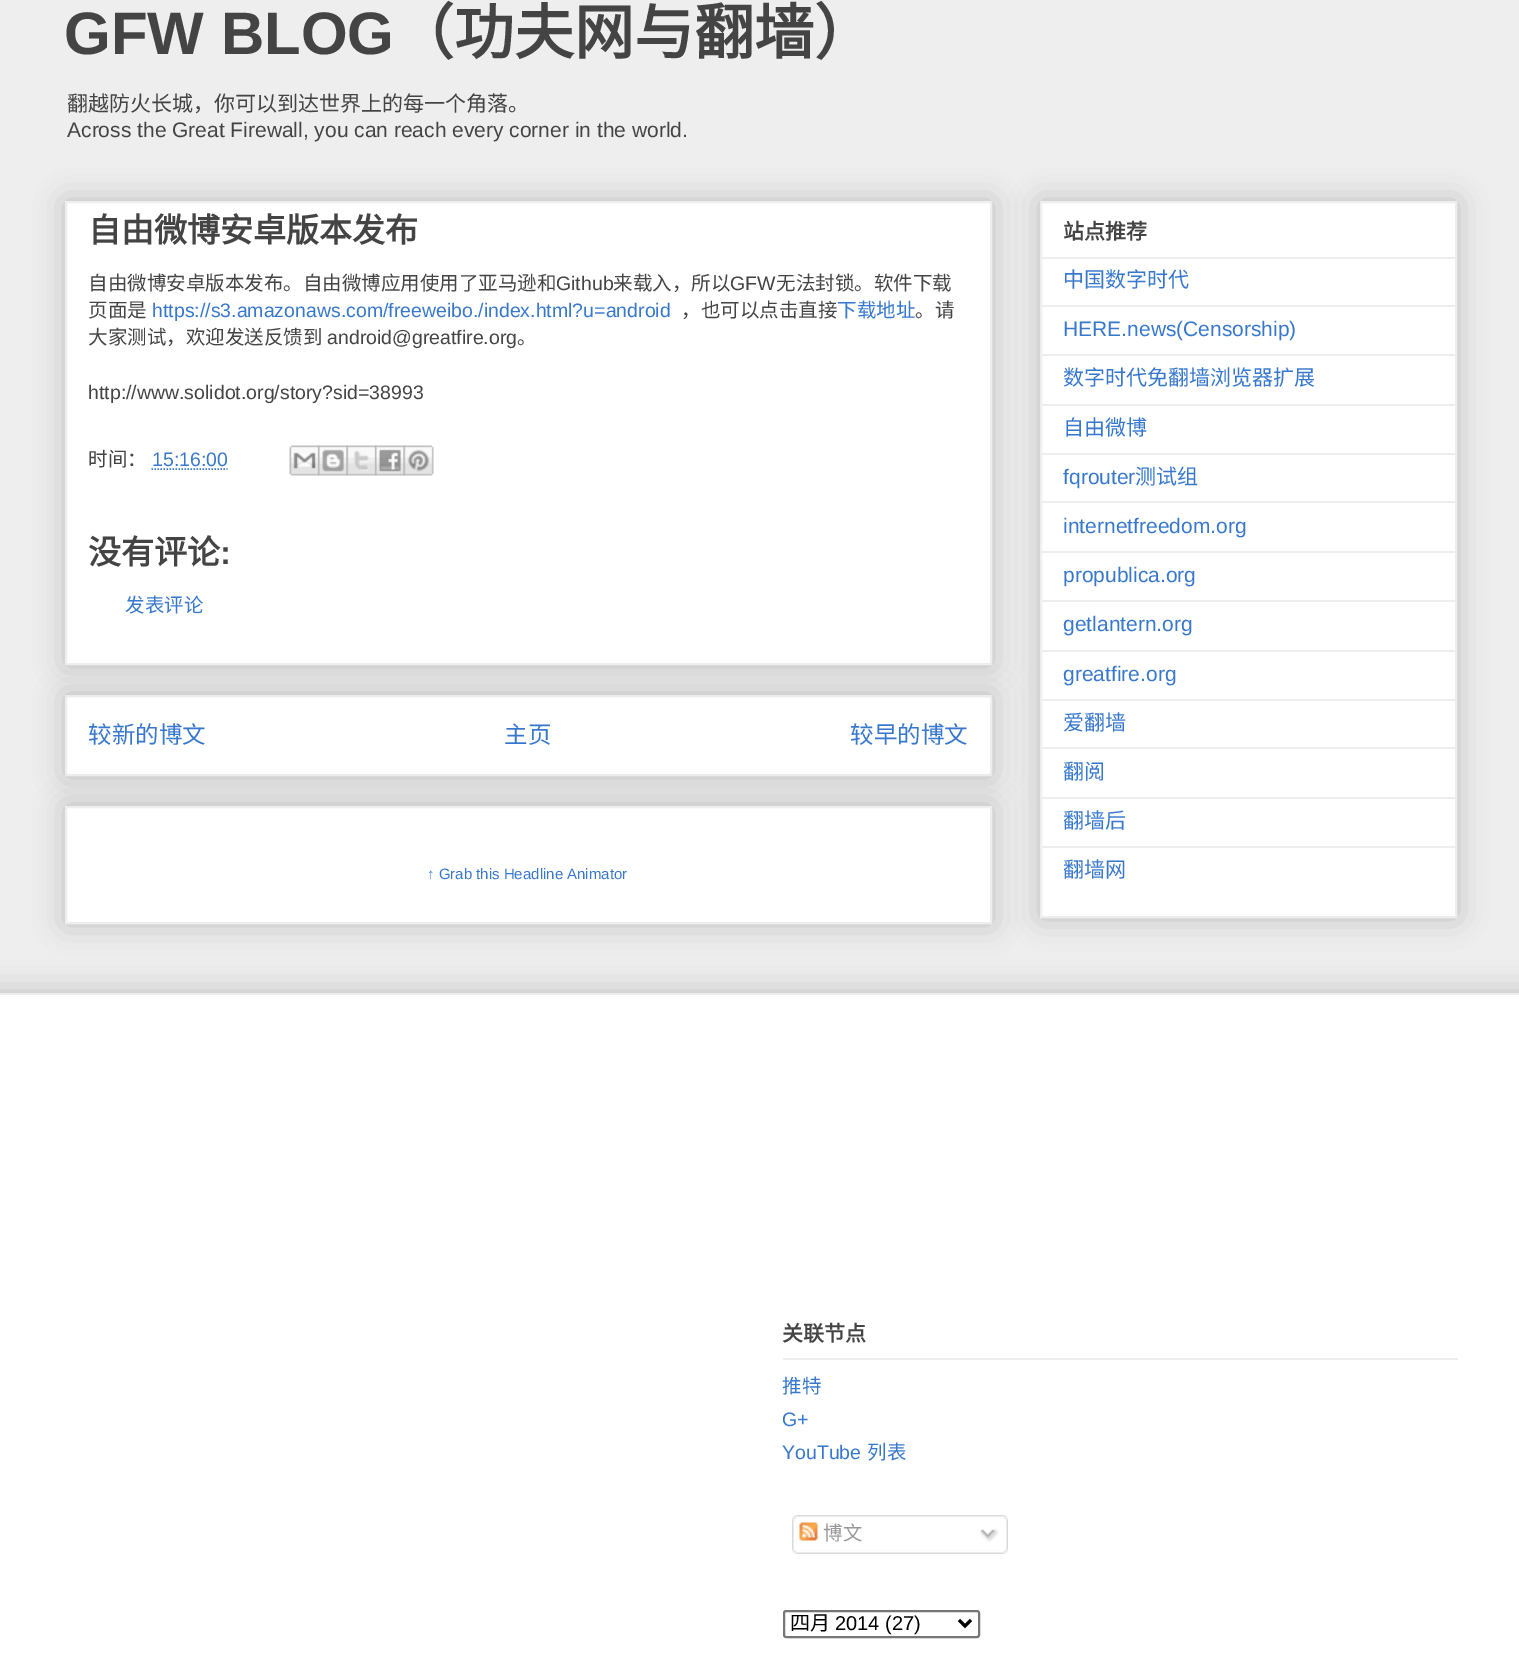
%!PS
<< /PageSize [1519 1655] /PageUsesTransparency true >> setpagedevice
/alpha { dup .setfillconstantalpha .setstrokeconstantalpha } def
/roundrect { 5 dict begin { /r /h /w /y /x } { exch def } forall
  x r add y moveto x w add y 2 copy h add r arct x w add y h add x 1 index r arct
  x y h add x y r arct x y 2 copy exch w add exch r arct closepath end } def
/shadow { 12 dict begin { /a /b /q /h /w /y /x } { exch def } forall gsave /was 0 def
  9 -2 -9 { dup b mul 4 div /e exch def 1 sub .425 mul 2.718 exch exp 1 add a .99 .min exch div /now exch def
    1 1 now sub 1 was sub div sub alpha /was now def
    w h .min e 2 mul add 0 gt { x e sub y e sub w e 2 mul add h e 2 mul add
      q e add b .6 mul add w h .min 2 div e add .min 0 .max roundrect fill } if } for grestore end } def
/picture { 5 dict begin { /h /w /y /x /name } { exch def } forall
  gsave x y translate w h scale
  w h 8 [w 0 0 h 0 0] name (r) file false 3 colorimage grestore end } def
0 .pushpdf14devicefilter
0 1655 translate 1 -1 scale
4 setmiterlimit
0.933 setgray
0 0 1519 1655 rectfill
/LiberationSans-Bold [60 0 0 -60 0 0] selectfont
0.267 setgray
64 54 moveto (GFW BLOG) show
/NotoSansCJKSC-Bold [60 0 0 -60 0 0] selectfont
394 54 moveto (（功夫网与翻墙）) show
/NotoSansCJKSC-Regular [21 0 0 -21 0 0] selectfont
67 111 moveto (翻越防火长城，你可以到达世界上的每一个角落。) show
/LiberationSans-Regular [21 0 0 -21 0 0] selectfont
67 137 moveto (Across the Great Firewall, you can reach every corner in the world.) show
0 setgray
65 695 927 81 0 15 0.2 shadow
1 setgray
newpath 66 696 moveto 991 696 lineto 991 775 lineto 66 775 lineto closepath gsave fill grestore
0.933 setgray
2 setlinewidth
stroke
0 setgray
65 201 927 464 0 15 0.2 shadow
1 setgray
newpath 66 202 moveto 991 202 lineto 991 664 lineto 66 664 lineto closepath gsave fill grestore
0.933 setgray
stroke
/NotoSansCJKSC-Bold [33 0 0 -33 0 0] selectfont
0.267 setgray
88 242 moveto (自由微博安卓版本发布) show
/NotoSansCJKSC-Regular [19.5 0 0 -19.5 0 0] selectfont
88 290 moveto (自由微博安卓版本发布。自由微博应用使用了亚马逊和) show
/LiberationSans-Regular [19.5 0 0 -19.5 0 0] selectfont
556 290 moveto (Github) show
/NotoSansCJKSC-Regular [19.5 0 0 -19.5 0 0] selectfont
613 290 moveto (来载入，所以) show
/LiberationSans-Regular [19.5 0 0 -19.5 0 0] selectfont
730 290 moveto (GFW) show
/NotoSansCJKSC-Regular [19.5 0 0 -19.5 0 0] selectfont
776 290 moveto (无法封锁。软件下载) show
88 317 moveto (页面是) show
/LiberationSans-Regular [19.5 0 0 -19.5 0 0] selectfont
0.216 0.471 0.804 setrgbcolor
152 317 moveto (https://s3.amazonaws.com/freeweibo./index.html?u=android) show
/NotoSansCJKSC-Regular [19.5 0 0 -19.5 0 0] selectfont
0.267 setgray
681 317 moveto (，也可以点击直接) show
0.216 0.471 0.804 setrgbcolor
837 317 moveto (下载地址) show
0.267 setgray
915 317 moveto (。请) show
88 344 moveto (大家测试，欢迎发送反馈到) show
/LiberationSans-Regular [19.5 0 0 -19.5 0 0] selectfont
327 344 moveto (android@greatfire.org) show
/NotoSansCJKSC-Regular [19.5 0 0 -19.5 0 0] selectfont
517 344 moveto (。) show
/LiberationSans-Regular [19.5 0 0 -19.5 0 0] selectfont
88 399 moveto (http://www.solidot.org/story?sid=38993) show
/NotoSansCJKSC-Regular [19.5 0 0 -19.5 0 0] selectfont
88 466 moveto (时间：) show
/LiberationSans-Regular [19.5 0 0 -19.5 0 0] selectfont
0.216 0.471 0.804 setrgbcolor
152 466 moveto (15:16:00) show
1.5 setlinewidth
[1.5 1.5] 0 setdash
newpath 151.5 469 moveto 227.5 469 lineto stroke
(img1.rgb) 289 445 31 31 picture
(img2.rgb) 318 445 30 31 picture
(img3.rgb) 346 445 31 31 picture
(img4.rgb) 375 445 30 31 picture
(img5.rgb) 403 445 31 31 picture
/NotoSansCJKSC-Bold [33 0 0 -33 0 0] selectfont
0.267 setgray
88 564 moveto (没有评论) show
/LiberationSans-Bold [33 0 0 -33 0 0] selectfont
220 564 moveto (:) show
/NotoSansCJKSC-Regular [19.5 0 0 -19.5 0 0] selectfont
0.216 0.471 0.804 setrgbcolor
125 612 moveto (发表评论) show
/NotoSansCJKSC-Regular [23.5 0 0 -23.5 0 0] selectfont
88 743 moveto (较新的博文) show
504 743 moveto (主页) show
850 743 moveto (较早的博文) show
0 setgray
65 806 927 118 0 15 0.2 shadow
1 setgray
newpath 66 807 moveto 991 807 lineto 991 923 lineto 66 923 lineto closepath gsave fill grestore
0.933 setgray
2 setlinewidth
[] 0 setdash
stroke
/LiberationSans-Regular [15 0 0 -15 0 0] selectfont
0.216 0.471 0.804 setrgbcolor
427 879 moveto (↑ Grab this Headline Animator) show
0 setgray
1040 201 417 717 0 15 0.2 shadow
1 setgray
newpath 1041 202 moveto 1456 202 lineto 1456 917 lineto 1041 917 lineto closepath gsave fill grestore
0.933 setgray
stroke
/NotoSansCJKSC-Bold [21 0 0 -21 0 0] selectfont
0.267 setgray
1063 239 moveto (站点推荐) show
0.933 setgray
1041 257 414 2 rectfill
/NotoSansCJKSC-Regular [21 0 0 -21 0 0] selectfont
0.216 0.471 0.804 setrgbcolor
1063 287 moveto (中国数字时代) show
0.933 setgray
1041 305 414 2 rectfill
/LiberationSans-Regular [21 0 0 -21 0 0] selectfont
0.216 0.471 0.804 setrgbcolor
1063 336 moveto (HERE.news\(Censorship\)) show
0.933 setgray
1041 354 414 2 rectfill
/NotoSansCJKSC-Regular [21 0 0 -21 0 0] selectfont
0.216 0.471 0.804 setrgbcolor
1063 385 moveto (数字时代免翻墙浏览器扩展) show
0.933 setgray
1041 404 414 2 rectfill
0.216 0.471 0.804 setrgbcolor
1063 435 moveto (自由微博) show
0.933 setgray
1041 453 414 2 rectfill
/LiberationSans-Regular [21 0 0 -21 0 0] selectfont
0.216 0.471 0.804 setrgbcolor
1063 484 moveto (fqrouter) show
/NotoSansCJKSC-Regular [21 0 0 -21 0 0] selectfont
1135 484 moveto (测试组) show
0.933 setgray
1041 501 414 2 rectfill
/LiberationSans-Regular [21 0 0 -21 0 0] selectfont
0.216 0.471 0.804 setrgbcolor
1063 533 moveto (internetfreedom.org) show
0.933 setgray
1041 551 414 2 rectfill
0.216 0.471 0.804 setrgbcolor
1063 582 moveto (propublica.org) show
0.933 setgray
1041 600 414 2 rectfill
0.216 0.471 0.804 setrgbcolor
1063 631 moveto (getlantern.org) show
0.933 setgray
1041 650 414 2 rectfill
0.216 0.471 0.804 setrgbcolor
1063 681 moveto (greatfire.org) show
0.933 setgray
1041 699 414 2 rectfill
/NotoSansCJKSC-Regular [21 0 0 -21 0 0] selectfont
0.216 0.471 0.804 setrgbcolor
1063 730 moveto (爱翻墙) show
0.933 setgray
1041 747 414 2 rectfill
0.216 0.471 0.804 setrgbcolor
1063 779 moveto (翻阅) show
0.933 setgray
1041 797 414 2 rectfill
0.216 0.471 0.804 setrgbcolor
1063 828 moveto (翻墙后) show
0.933 setgray
1041 846 414 2 rectfill
0.216 0.471 0.804 setrgbcolor
1063 877 moveto (翻墙网) show
0 setgray
-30 993 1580 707 0 15 0.2 shadow
1 setgray
0 995 1519 660 rectfill
0.933 setgray
0 993 1519 2 rectfill
/NotoSansCJKSC-Bold [21 0 0 -21 0 0] selectfont
0.267 setgray
782 1341 moveto (关联节点) show
0.933 setgray
783 1358 675 2 rectfill
/NotoSansCJKSC-Regular [19.5 0 0 -19.5 0 0] selectfont
0.216 0.471 0.804 setrgbcolor
782 1393 moveto (推特) show
/LiberationSans-Regular [19.5 0 0 -19.5 0 0] selectfont
782 1426 moveto (G+) show
782 1459 moveto (YouTube) show
/NotoSansCJKSC-Regular [19.5 0 0 -19.5 0 0] selectfont
867 1459 moveto (列表) show
(img6.rgb) 792 1515 216 35 picture
(img7.rgb) 799 1522 19 19 picture
0.6 setgray
823 1540 moveto (博文) show
(img8.rgb) 979 1528 20 14 picture
(img9.rgb) 792 1549 216 5 picture
0.463 setgray
784 1611 195 26 2 roundrect stroke
0 setgray
3 setlinewidth
newpath 959 1620 moveto 965 1626 lineto 971 1620 lineto stroke
/NotoSansCJKSC-Regular [20 0 0 -20 0 0] selectfont
790 1630 moveto (四月) show
/LiberationSans-Regular [20 0 0 -20 0 0] selectfont
835 1630 moveto (2014 \(27\)) show
.poppdf14devicefilter showpage
